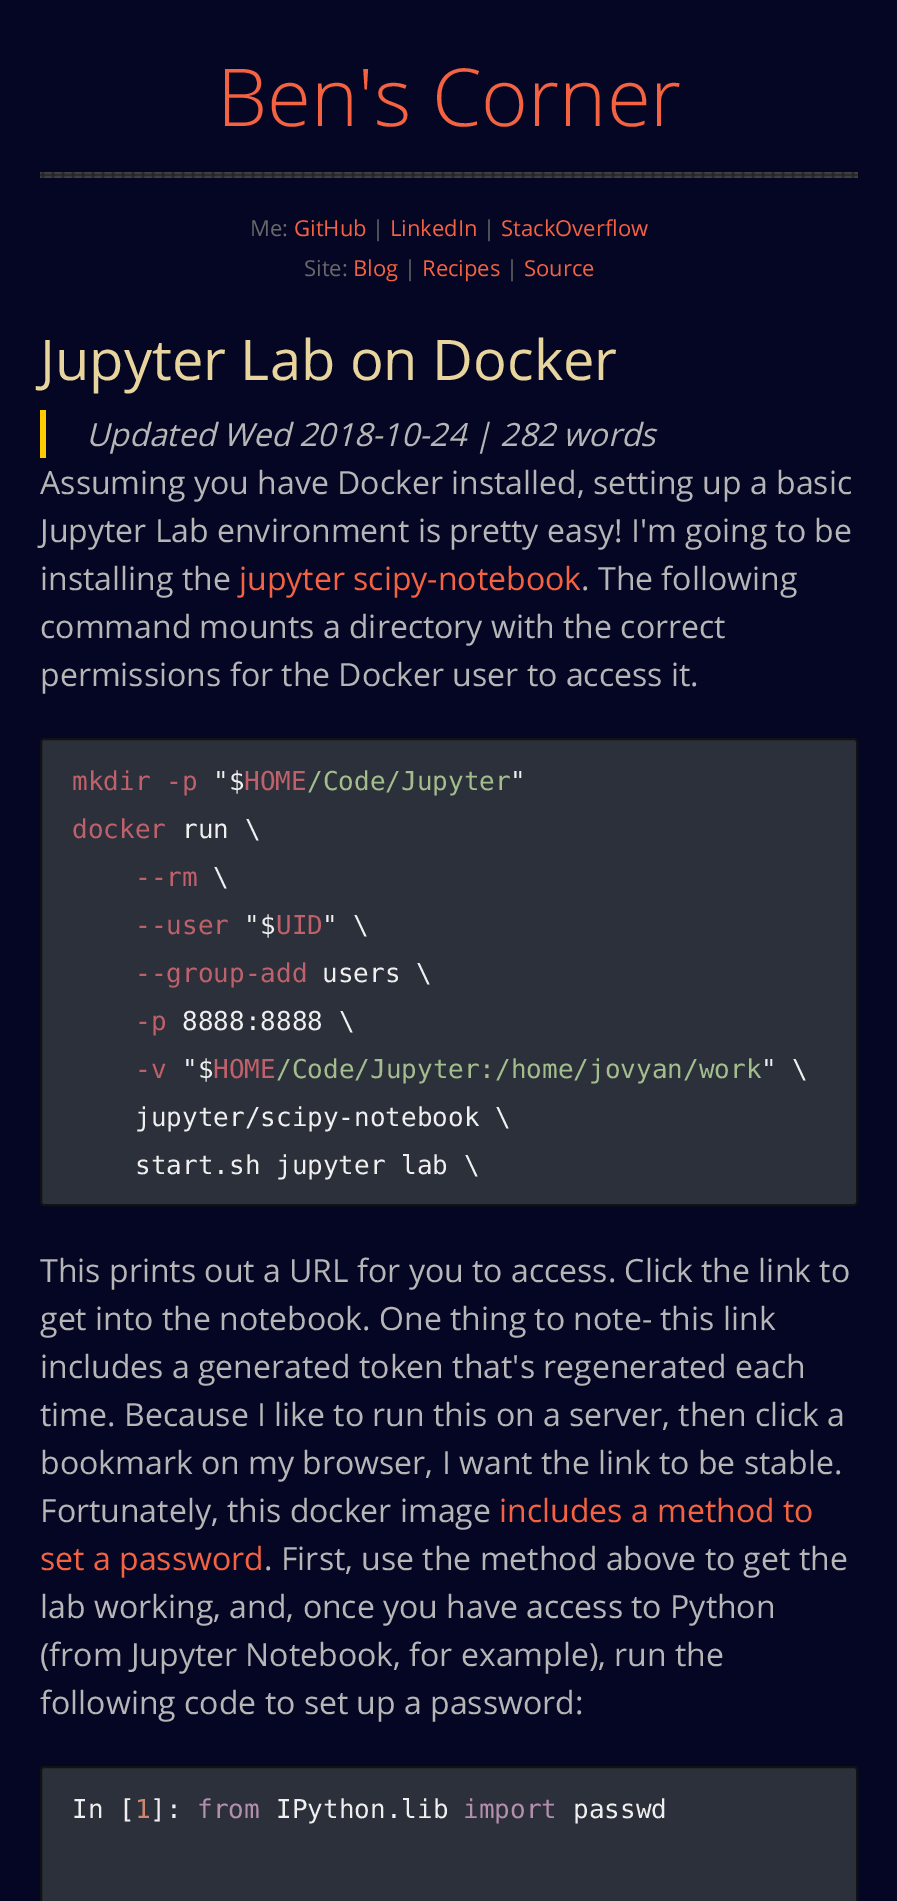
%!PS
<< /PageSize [897 1901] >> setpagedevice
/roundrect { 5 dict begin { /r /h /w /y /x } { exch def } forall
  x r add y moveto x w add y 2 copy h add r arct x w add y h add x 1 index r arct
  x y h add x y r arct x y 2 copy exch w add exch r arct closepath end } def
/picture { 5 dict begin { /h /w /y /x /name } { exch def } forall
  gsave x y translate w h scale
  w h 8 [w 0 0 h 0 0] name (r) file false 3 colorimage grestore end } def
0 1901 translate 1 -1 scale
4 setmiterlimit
0.016 0.024 0.137 setrgbcolor
0 0 897 1901 rectfill
/OpenSans-Light [80 0 0 -80 0 0] selectfont
0.957 0.384 0.259 setrgbcolor
217 126 moveto (Ben's Corner) show
(img1.rgb) 40 172 818 6 picture
/OpenSans-Regular [22 0 0 -22 0 0] selectfont
0.412 setgray
250 236 moveto (Me:) show
0.957 0.384 0.259 setrgbcolor
294 236 moveto (GitHub) show
0.412 setgray
372 236 moveto (|) show
0.957 0.384 0.259 setrgbcolor
390 236 moveto (LinkedIn) show
0.412 setgray
483 236 moveto (|) show
0.957 0.384 0.259 setrgbcolor
501 236 moveto (StackOverflow) show
0.412 setgray
304 276 moveto (Site:) show
0.957 0.384 0.259 setrgbcolor
353 276 moveto (Blog) show
0.412 setgray
404 276 moveto (|) show
0.957 0.384 0.259 setrgbcolor
422 276 moveto (Recipes) show
0.412 setgray
506 276 moveto (|) show
0.957 0.384 0.259 setrgbcolor
524 276 moveto (Source) show
/OpenSans-Regular [56 0 0 -56 0 0] selectfont
0.91 0.831 0.616 setrgbcolor
40 380 moveto (Jupyter Lab on Docker) show
1 0.8 0 setrgbcolor
40 410 6 48 rectfill
/OpenSans-Italic [32 0 0 -32 0 0] selectfont
0.714 setgray
86 446 moveto (Updated Wed 2018-10-24 | 282 words) show
/OpenSans-Regular [32 0 0 -32 0 0] selectfont
40 494 moveto (Assuming you have Docker installed, setting up a basic) show
40 542 moveto (Jupyter Lab environment is pretty easy! I'm going to be) show
40 590 moveto (installing the) show
0.957 0.384 0.259 setrgbcolor
239 590 moveto (jupyter scipy-notebook) show
0.714 setgray
581 590 moveto (. The following) show
40 638 moveto (command mounts a directory with the correct) show
40 686 moveto (permissions for the Docker user to access it.) show
0.169 0.188 0.231 setrgbcolor
41 739 816 466 3 roundrect gsave fill grestore
0.071 setgray
2 setlinewidth
stroke
/DejaVuSansMono-Regular [26 0 0 -26 0 0] selectfont
0.749 0.38 0.416 setrgbcolor
72 790 moveto (mkdir -p) show
0.937 setgray
213 790 moveto ("$) show
0.749 0.38 0.416 setrgbcolor
244 790 moveto (HOME) show
0.639 0.745 0.549 setrgbcolor
307 790 moveto (/Code/Jupyter) show
0.937 setgray
510 790 moveto (") show
0.749 0.38 0.416 setrgbcolor
72 838 moveto (docker) show
0.937 setgray
182 838 moveto (run \\) show
0.749 0.38 0.416 setrgbcolor
135 886 moveto (--rm) show
0.937 setgray
213 886 moveto (\\) show
0.749 0.38 0.416 setrgbcolor
135 934 moveto (--user) show
0.937 setgray
244 934 moveto ("$) show
0.749 0.38 0.416 setrgbcolor
276 934 moveto (UID) show
0.937 setgray
322 934 moveto (" \\) show
0.749 0.38 0.416 setrgbcolor
135 982 moveto (--group-add) show
0.937 setgray
322 982 moveto (users \\) show
0.749 0.38 0.416 setrgbcolor
135 1030 moveto (-p) show
0.937 setgray
182 1030 moveto (8888:8888 \\) show
0.749 0.38 0.416 setrgbcolor
135 1078 moveto (-v) show
0.937 setgray
182 1078 moveto ("$) show
0.749 0.38 0.416 setrgbcolor
213 1078 moveto (HOME) show
0.639 0.745 0.549 setrgbcolor
276 1078 moveto (/Code/Jupyter:/home/jovyan/work) show
0.937 setgray
761 1078 moveto (" \\) show
135 1126 moveto (jupyter/scipy-notebook \\) show
135 1174 moveto (start.sh jupyter lab \\) show
/OpenSans-Regular [32 0 0 -32 0 0] selectfont
0.714 setgray
40 1282 moveto (This prints out a URL for you to access. Click the link to) show
40 1330 moveto (get into the notebook. One thing to note- this link) show
40 1378 moveto (includes a generated token that's regenerated each) show
40 1426 moveto (time. Because I like to run this on a server, then click a) show
40 1474 moveto (bookmark on my browser, I want the link to be stable.) show
40 1522 moveto (Fortunately, this docker image) show
0.957 0.384 0.259 setrgbcolor
499 1522 moveto (includes a method to) show
40 1570 moveto (set a password) show
0.714 setgray
264 1570 moveto (. First, use the method above to get the) show
40 1618 moveto (lab working, and, once you have access to Python) show
40 1666 moveto (\(from Jupyter Notebook, for example\), run the) show
40 1714 moveto (following code to set up a password:) show
0.169 0.188 0.231 setrgbcolor
41 1767 816 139 3 roundrect gsave fill grestore
0.071 setgray
stroke
/DejaVuSansMono-Regular [26 0 0 -26 0 0] selectfont
0.937 setgray
72 1818 moveto (In [ ]:) show
0.706 0.557 0.678 setrgbcolor
197 1818 moveto (from) show
0.937 setgray
276 1818 moveto (IPython.lib) show
0.706 0.557 0.678 setrgbcolor
463 1818 moveto (import) show
0.937 setgray
573 1818 moveto (passwd) show
0.816 0.529 0.439 setrgbcolor
135 1818 moveto (1) show
showpage
